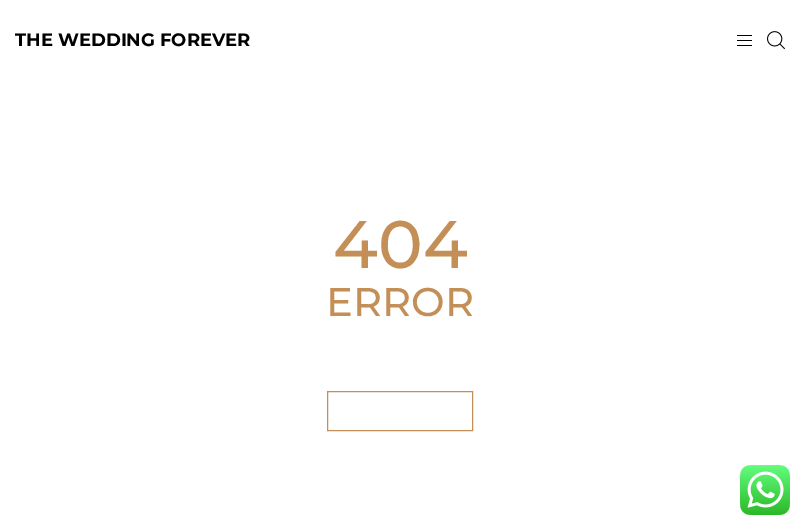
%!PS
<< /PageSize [800 525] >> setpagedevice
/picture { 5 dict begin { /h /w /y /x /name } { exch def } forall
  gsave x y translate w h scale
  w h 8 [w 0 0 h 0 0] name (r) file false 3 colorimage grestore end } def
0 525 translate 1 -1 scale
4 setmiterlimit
1 setgray
0 0 800 525 rectfill
/Montserrat-Bold [18 0 0 -18 0 0] selectfont
0 setgray
15 46 moveto (THE WEDDING FOREVER) show
737 35 15 1 rectfill
737 40 15 1 rectfill
737 45 15 1 rectfill
(img1.rgb) 767 31 18 19 picture
/Montserrat-Medium [67 0 0 -67 0 0] selectfont
0.769 0.561 0.337 setrgbcolor
333 268 moveto (404) show
/Montserrat-Medium [40 0 0 -40 0 0] selectfont
326 316 moveto (ERROR) show
327.5 391.5 145 39 rectstroke
(img2.rgb) 740 465 50 50 picture
showpage
